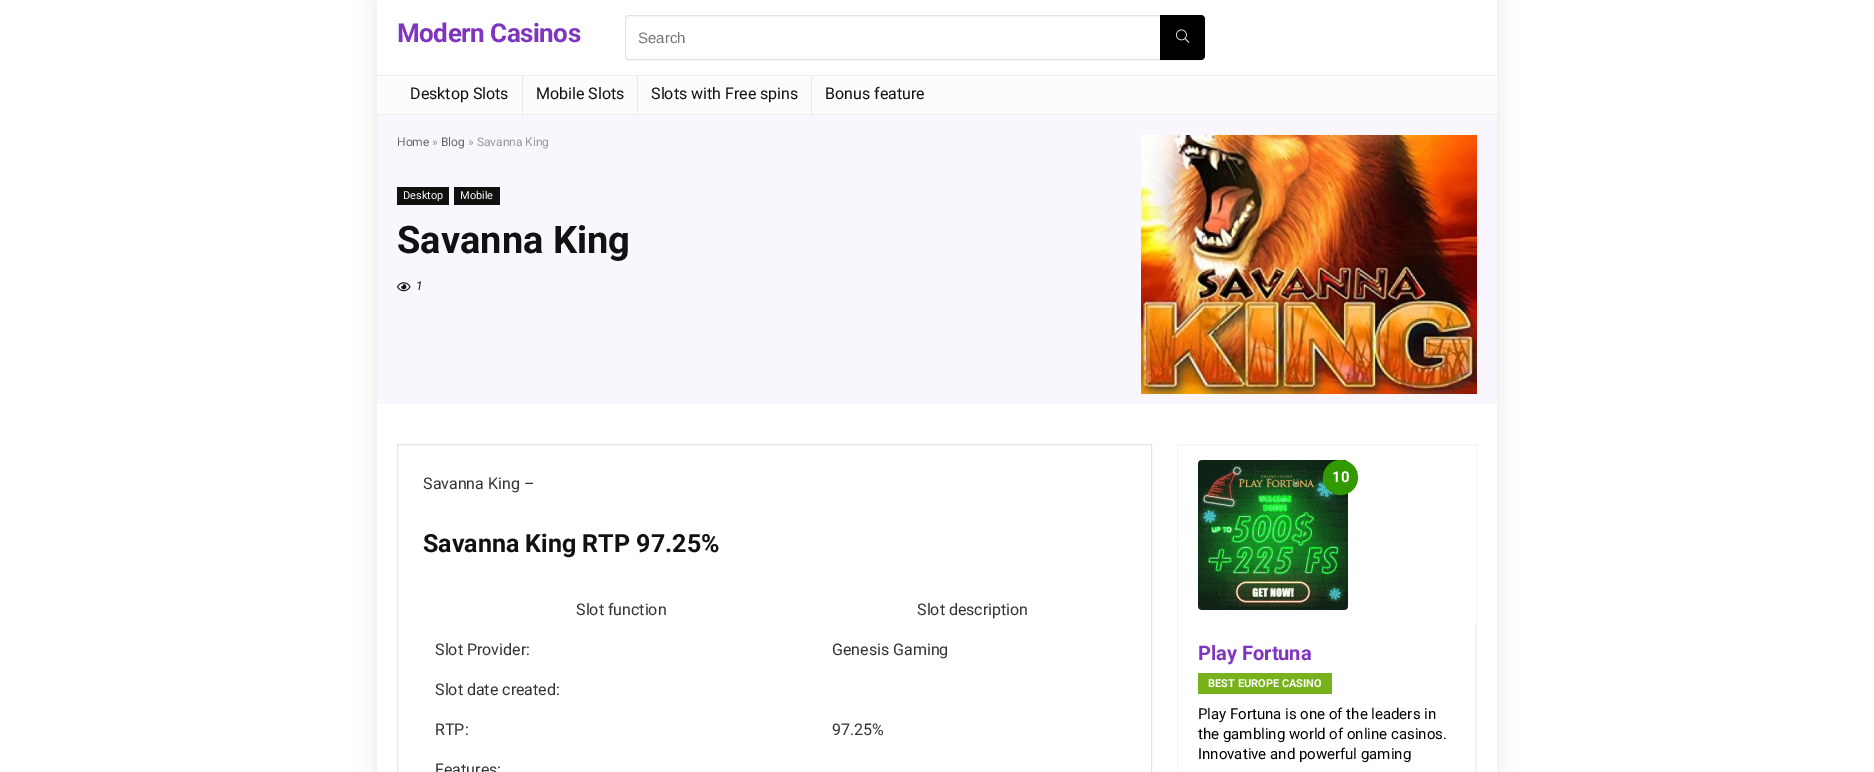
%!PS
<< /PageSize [1874 772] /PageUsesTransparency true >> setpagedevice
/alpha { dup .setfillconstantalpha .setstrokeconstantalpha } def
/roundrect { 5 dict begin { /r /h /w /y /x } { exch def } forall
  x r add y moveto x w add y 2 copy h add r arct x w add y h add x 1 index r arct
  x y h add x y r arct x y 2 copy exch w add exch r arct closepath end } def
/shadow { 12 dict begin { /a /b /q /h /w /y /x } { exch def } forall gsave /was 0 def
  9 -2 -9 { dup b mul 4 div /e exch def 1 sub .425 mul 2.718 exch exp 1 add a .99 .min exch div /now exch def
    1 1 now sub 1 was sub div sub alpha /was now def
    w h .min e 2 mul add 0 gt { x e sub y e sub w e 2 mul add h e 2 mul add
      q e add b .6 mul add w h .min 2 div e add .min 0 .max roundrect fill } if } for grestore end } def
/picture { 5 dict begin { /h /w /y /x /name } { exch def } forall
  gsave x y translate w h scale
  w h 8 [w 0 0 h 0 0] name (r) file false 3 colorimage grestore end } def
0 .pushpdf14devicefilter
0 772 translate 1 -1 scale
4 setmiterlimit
1 setgray
0 0 1874 772 rectfill
gsave
newpath 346 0 moveto 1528 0 lineto 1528 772 lineto 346 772 lineto closepath 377 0 moveto 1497 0 lineto 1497 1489 lineto 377 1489 lineto closepath eoclip newpath
0 setgray
377 0 1120 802 0 10 0.1 shadow
grestore
/Roboto-Bold [26 0 0 -26 0 0] selectfont
0.502 0.208 0.745 setrgbcolor
397 42 moveto -0.5 0 (Modern Casinos) ashow
0.882 setgray
625.5 15.5 579 44 3.5 roundrect stroke
/LiberationSans-Regular [15 0 0 -15 0 0] selectfont
0.459 setgray
638 43 moveto (Search) show
0 setgray
newpath 1160 15 moveto 1201 15 lineto 1203 15 1205 17 1205 19 curveto 1205 56 lineto 1205 58 1203 60 1201 60 curveto 1160 60 lineto closepath fill
(img1.rgb) 1176 29 14 14 picture
0.988 setgray
377 76 1120 38 rectfill
0.933 setgray
377 75 1120 1 rectfill
377 114 1120 1 rectfill
0.91 setgray
522 76 1 38 rectfill
/Roboto-Regular [16 0 0 -16 0 0] selectfont
0.067 setgray
410 99 moveto (Desktop Slots) show
0.91 setgray
637 76 1 38 rectfill
0.067 setgray
536 99 moveto (Mobile Slots) show
0.91 setgray
811 76 1 38 rectfill
0.067 setgray
651 99 moveto (Slots with Free spins) show
825 99 moveto (Bonus feature) show
0.976 0.965 0.992 setrgbcolor
377 115 1120 289 rectfill
/Roboto-Regular [12 0 0 -12 0 0] selectfont
0.4 setgray
397 146 moveto (Home) show
0.6 setgray
432 146 moveto (») show
0.4 setgray
441 146 moveto (Blog) show
0.6 setgray
468 146 moveto (» Savanna King) show
0.067 setgray
397 187 52 18 rectfill
/Roboto-Regular [11 0 0 -11 0 0] selectfont
1 setgray
403 199 moveto (Desktop) show
0.067 setgray
454 187 46 18 rectfill
1 setgray
460 199 moveto (Mobile) show
/Roboto-Bold [38 0 0 -38 0 0] selectfont
0.067 setgray
397 253 moveto (Savanna King) show
(img2.rgb) 397 282 14 10 picture
/Roboto-Italic [12 0 0 -12 0 0] selectfont
416 290 moveto (1) show
(img3.rgb) 1141 135 336 259 picture
0.89 setgray
397.5 444.5 754 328 rectstroke
/Roboto-Regular [16 0 0 -16 0 0] selectfont
0.2 setgray
423 489 moveto (Savanna King –) show
/Roboto-Bold [25 0 0 -25 0 0] selectfont
0.067 setgray
423 552 moveto (Savanna King RTP 97.25%) show
/Roboto-Regular [16 0 0 -16 0 0] selectfont
0.2 setgray
576 615 moveto (Slot function) show
917 615 moveto (Slot description) show
435 655 moveto (Slot Provider:) show
832 655 moveto (Genesis Gaming) show
435 695 moveto (Slot date created:) show
435 735 moveto (RTP:) show
832 735 moveto (97.25%) show
435 775 moveto (Features:) show
0.957 setgray
1177.5 444.5 299 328 rectstroke
(img4.rgb) 1198 460 150 150 picture
0.2 0.6 0 setrgbcolor
newpath 1340.5 477.5 17.5 0 360 arc closepath fill
/Roboto-Bold [15 0 0 -15 0 0] selectfont
1 setgray
1332 482 moveto (10) show
0.941 setgray
1475 625 1 147 rectfill
/Roboto-Bold [20 0 0 -20 0 0] selectfont
0.502 0.208 0.745 setrgbcolor
1198 660 moveto (Play Fortuna) show
0.467 0.698 0.114 setrgbcolor
1198 673 134 21 rectfill
/Roboto-Bold [11 0 0 -11 0 0] selectfont
1 setgray
1208 687 moveto (BEST EUROPE CASINO) show
/Roboto-Regular [15 0 0 -15 0 0] selectfont
0 setgray
1198 719 moveto (Play Fortuna is one of the leaders in) show
1198 739 moveto (the gambling world of online casinos.) show
1198 759 moveto (Innovative and powerful gaming) show
.poppdf14devicefilter showpage
